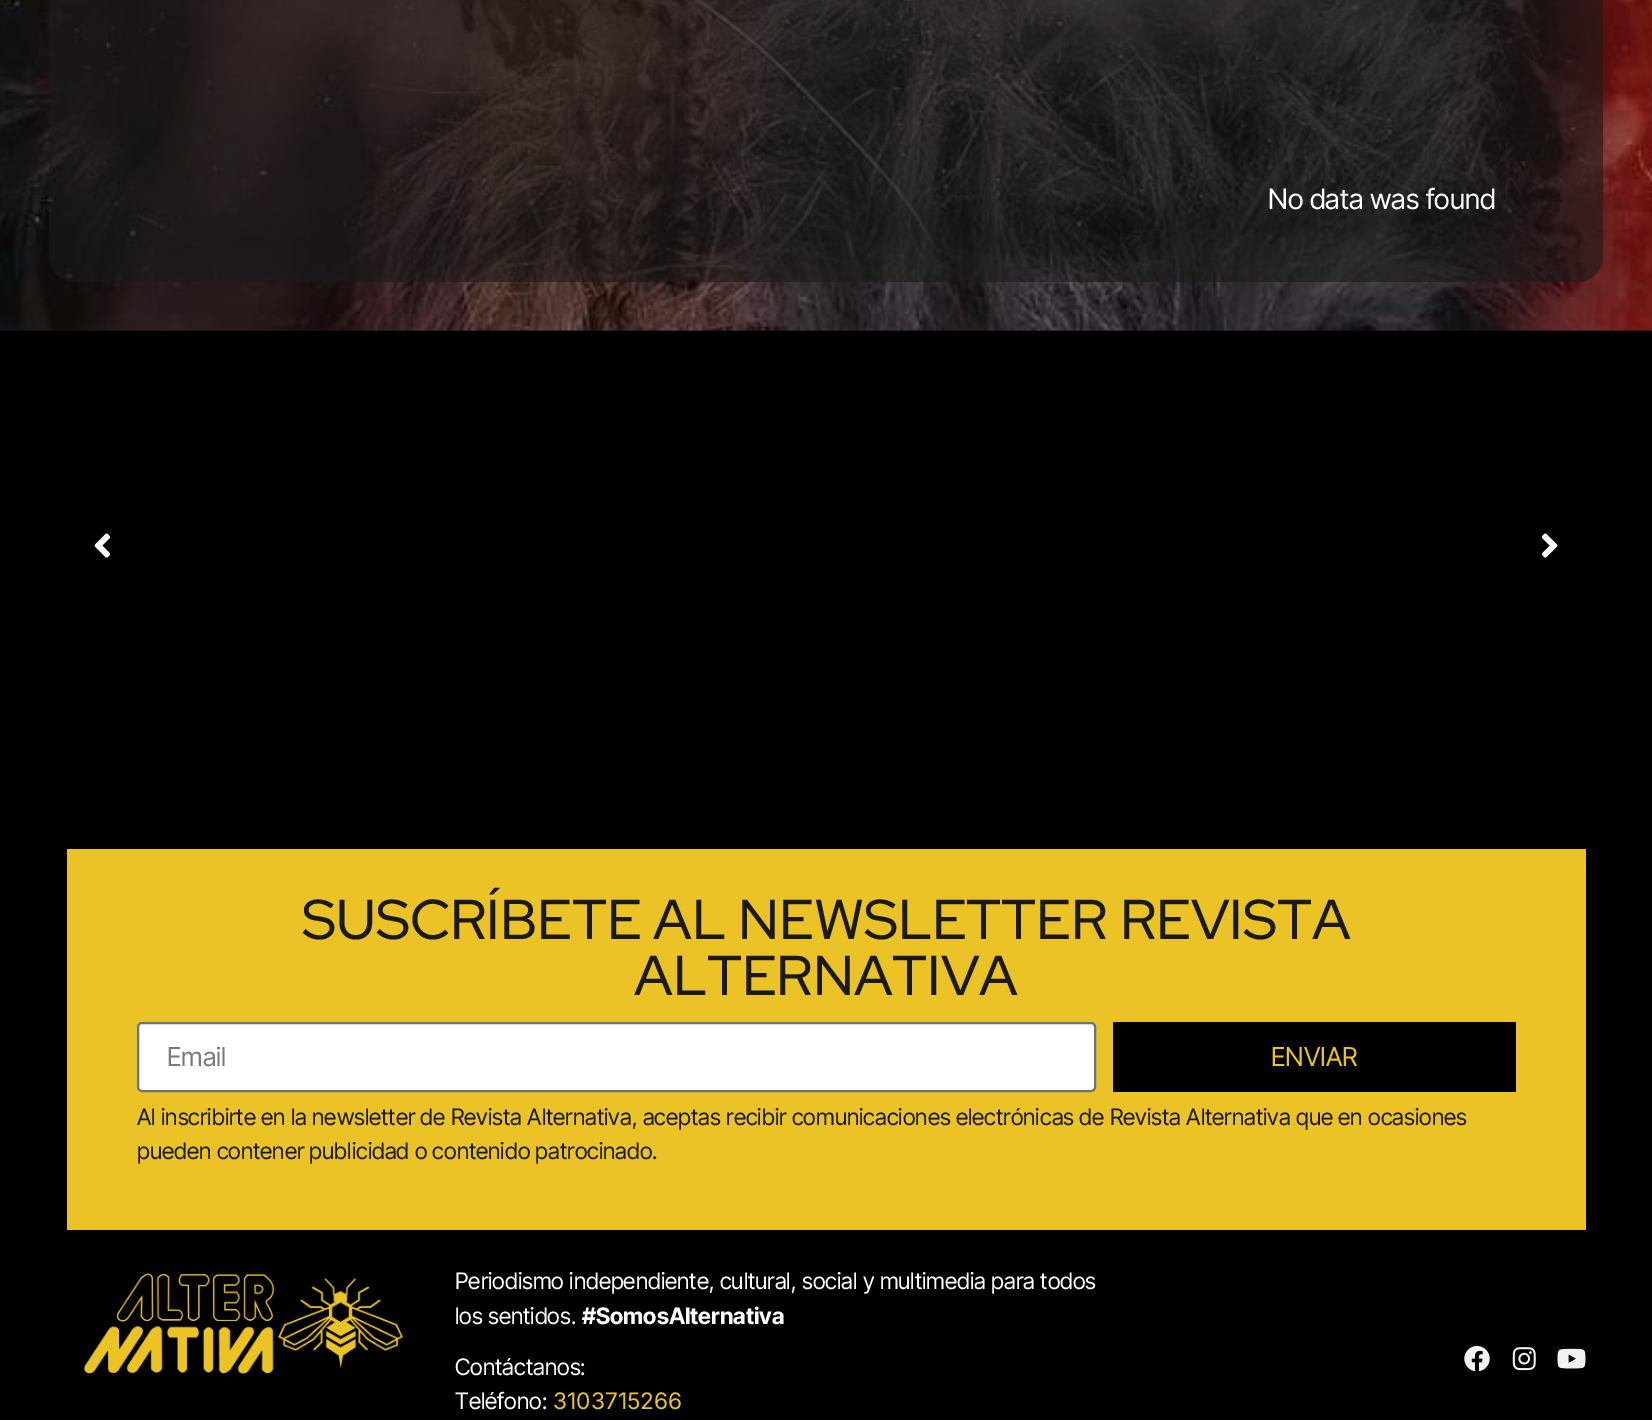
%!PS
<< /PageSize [1652 1420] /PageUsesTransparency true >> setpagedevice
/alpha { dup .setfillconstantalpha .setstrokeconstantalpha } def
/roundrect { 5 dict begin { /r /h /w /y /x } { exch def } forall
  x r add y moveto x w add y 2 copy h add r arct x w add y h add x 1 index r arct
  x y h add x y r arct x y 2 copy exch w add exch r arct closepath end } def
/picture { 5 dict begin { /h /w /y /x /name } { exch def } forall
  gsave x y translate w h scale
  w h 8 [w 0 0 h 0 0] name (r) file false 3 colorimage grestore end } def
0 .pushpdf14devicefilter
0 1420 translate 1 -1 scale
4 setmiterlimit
0.063 setgray
0 0 1652 1420 rectfill
(img1.rgb) 0 0 1652 331 picture
0.6 alpha
0.102 setgray
newpath 49 -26 moveto 1603 -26 lineto 1603 256 lineto 1603 270.5 1591.5 282 1577 282 curveto 75 282 lineto 60.5 282 49 270.5 49 256 curveto closepath fill
/InterTight-Regular [28 0 0 -28 0 0] selectfont
1 alpha
1 setgray
1268 209 moveto (No data was found) show
0 setgray
0 331 1652 1089 rectfill
(img2.rgb) 94 533 17 25 picture
(img3.rgb) 1541 533 17 25 picture
0.925 0.765 0.149 setrgbcolor
67 849 1519 381 rectfill
/RedHatDisplay-Medium [56 0 0 -56 0 0] selectfont
0.102 setgray
302 939 moveto (SUSCRÍBETE AL NEWSLETTER REVISTA) show
634 995 moveto (ALTERNATIVA) show
1 setgray
138 1023 957 68 4 roundrect gsave fill grestore
0.412 0.447 0.49 setrgbcolor
2 setlinewidth
stroke
/InterTight-Regular [26 0 0 -26 0 0] selectfont
0.475 0.478 0.486 setrgbcolor
167 1066 moveto (Email) show
0 setgray
1113 1022 403 70 rectfill
0.925 0.765 0.149 setrgbcolor
1271 1066 moveto (ENVIAR) show
/InterTight-Regular [22.75 0 0 -22.75 0 0] selectfont
0.102 setgray
137 1125 moveto (Al inscribirte en la newsletter de Revista Alternativa, aceptas recibir comunicaciones electrónicas de Revista Alternativa que en ocasiones) show
137 1159 moveto (pueden contener publicidad o contenido patrocinado.) show
(img4.rgb) 84 1273 320 101 picture
1 setgray
455 1289 moveto (Periodismo independiente, cultural, social y multimedia para todos) show
455 1324 moveto (los sentidos.) show
/InterTight-Bold [22.75 0 0 -22.75 0 0] selectfont
582 1324 moveto (#SomosAlternativa) show
/InterTight-Regular [22.75 0 0 -22.75 0 0] selectfont
455 1375 moveto (Contáctanos:) show
455 1409 moveto (Teléfono:) show
/Inter-Regular [22.75 0 0 -22.75 0 0] selectfont
0.925 0.765 0.149 setrgbcolor
553 1409 moveto (3103715266) show
(img5.rgb) 1464 1345 26 27 picture
(img6.rgb) 1512 1347 24 24 picture
(img7.rgb) 1557 1348 29 21 picture
.poppdf14devicefilter showpage
